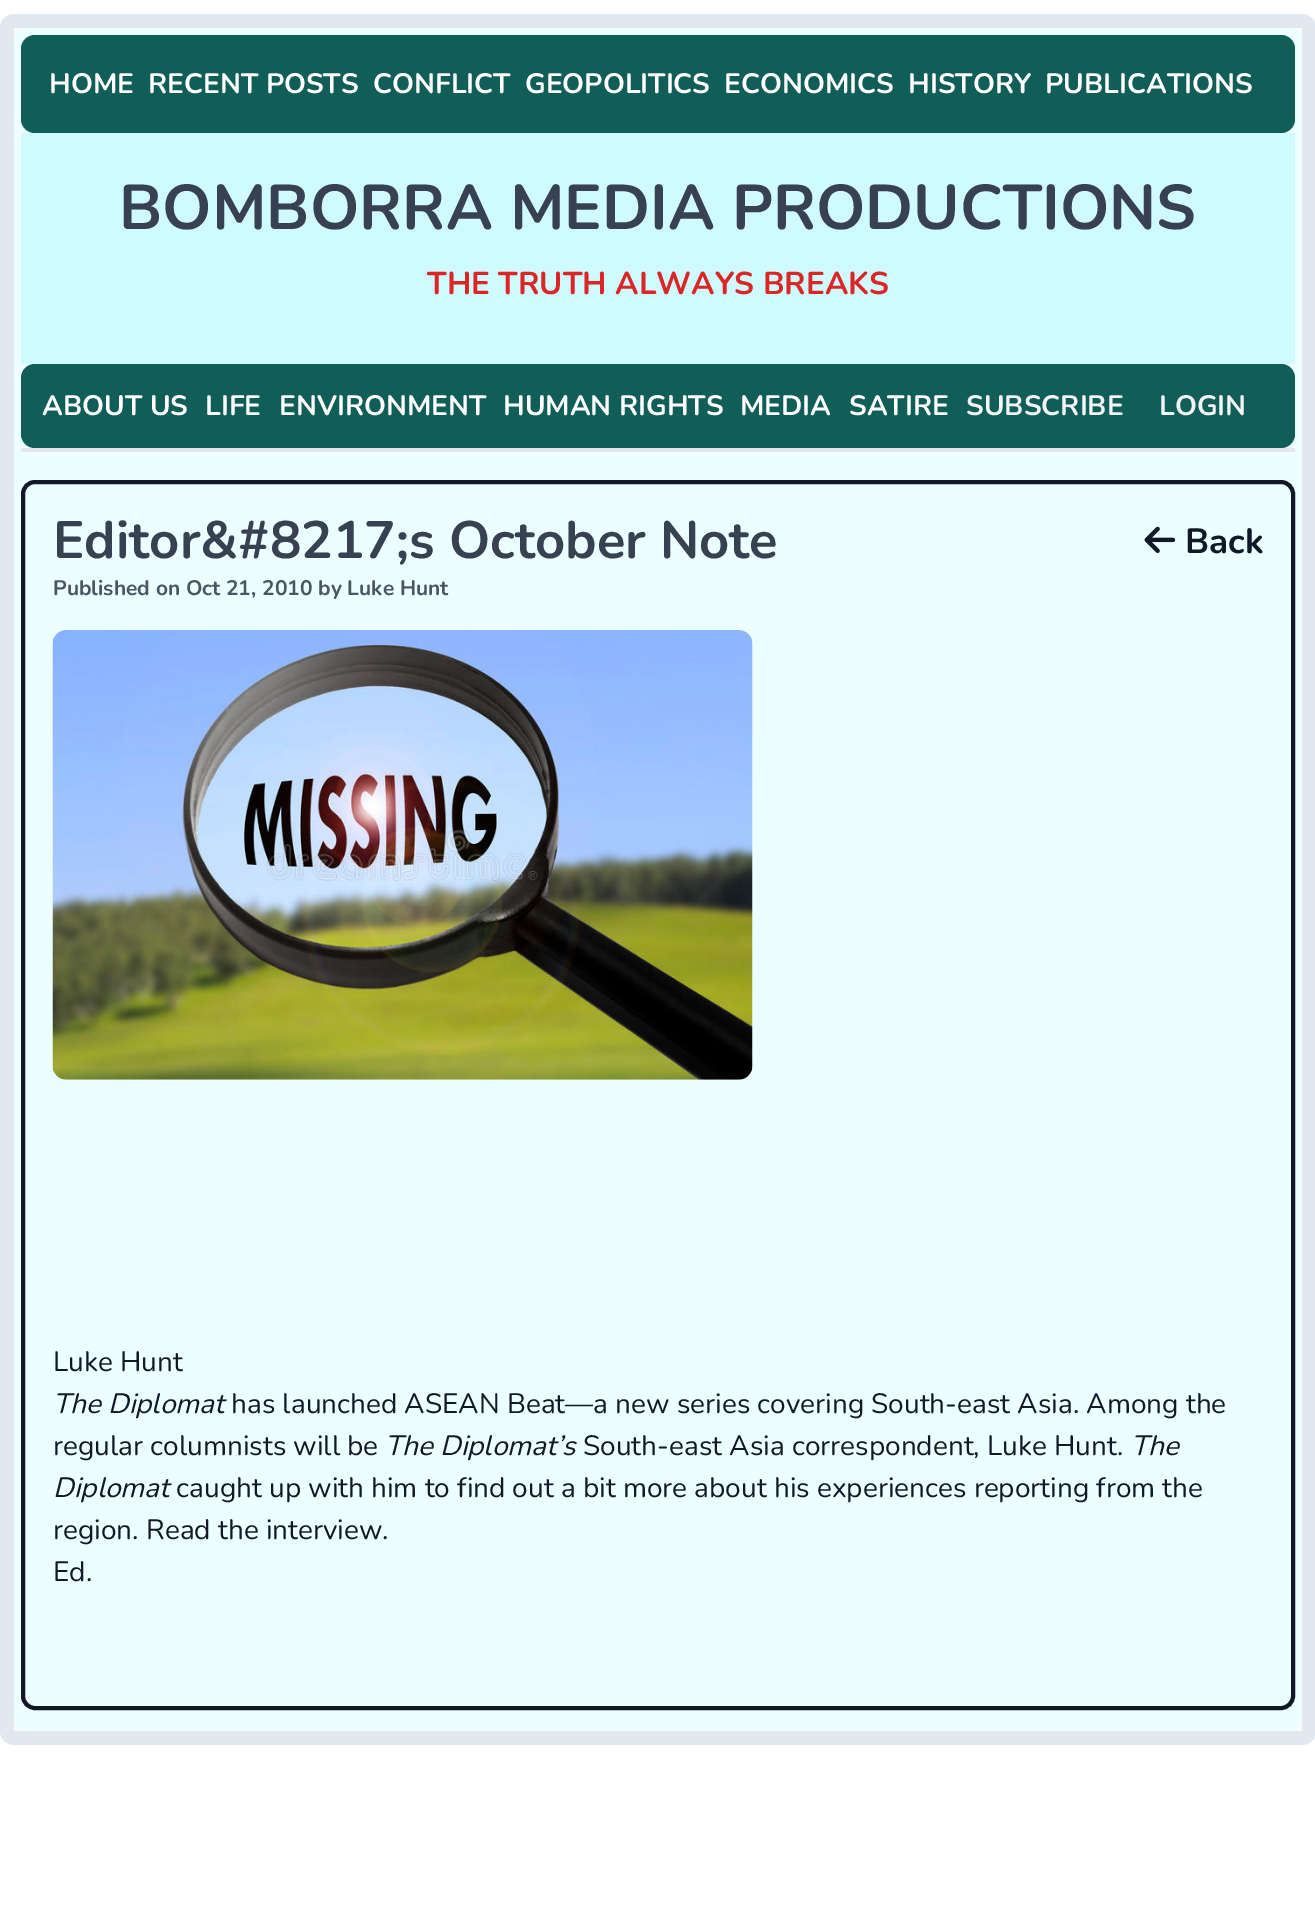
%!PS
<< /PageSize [1315 1917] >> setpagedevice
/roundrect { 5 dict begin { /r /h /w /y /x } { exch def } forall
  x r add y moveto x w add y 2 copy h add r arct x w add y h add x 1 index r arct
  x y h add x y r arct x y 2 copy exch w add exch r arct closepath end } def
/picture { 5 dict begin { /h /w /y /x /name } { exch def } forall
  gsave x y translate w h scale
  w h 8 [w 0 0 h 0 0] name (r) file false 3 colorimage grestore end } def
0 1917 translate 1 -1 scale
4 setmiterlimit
1 setgray
0 0 1315 1917 rectfill
0.886 0.91 0.941 setrgbcolor
0 14 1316 1731 14 roundrect fill
0.976 0.98 0.984 setrgbcolor
14 28 1288 1703 rectfill
0.925 0.996 1 setrgbcolor
14 28 1288 1703 14 roundrect fill
0.898 0.906 0.922 setrgbcolor
21 448 1274 4 rectfill
0.067 0.369 0.349 setrgbcolor
21 35 1274 98 14 roundrect fill
/Nunito-Bold [28 0 0 -28 0 0] selectfont
1 setgray
49 93 moveto (HOME) show
148 93 moveto (RECENT POSTS) show
373 93 moveto (CONFLICT) show
525 93 moveto (GEOPOLITICS) show
724 93 moveto (ECONOMICS) show
908 93 moveto (HISTORY) show
1045 93 moveto (PUBLICATIONS) show
0.812 0.98 0.996 setrgbcolor
21 133 1274 231 rectfill
/Nunito-Bold [63 0 0 -63 0 0] selectfont
0.216 0.255 0.318 setrgbcolor
119 229 moveto (BOMBORRA MEDIA PRODUCTIONS) show
/Nunito-Bold [31.5 0 0 -31.5 0 0] selectfont
0.863 0.149 0.149 setrgbcolor
427 294 moveto (THE TRUTH ALWAYS BREAKS) show
0.067 0.369 0.349 setrgbcolor
21 364 1274 84 14 roundrect fill
/Nunito-Bold [28 0 0 -28 0 0] selectfont
1 setgray
42 415 moveto (ABOUT US) show
205 415 moveto (LIFE) show
279 415 moveto (ENVIRONMENT) show
503 415 moveto (HUMAN RIGHTS) show
740 415 moveto (MEDIA) show
849 415 moveto (SATIRE) show
0.953 0.957 0.965 setrgbcolor
966 415 moveto (SUBSCRIBE) show
1159 415 moveto (LOGIN) show
0.067 0.094 0.153 setrgbcolor
4 setlinewidth
23 482 1270 1226 12 roundrect stroke
/Nunito-Bold [52.5 0 0 -52.5 0 0] selectfont
0.216 0.255 0.318 setrgbcolor
53 558 moveto (Editor&#8217;s October Note) show
/Nunito-Bold [21 0 0 -21 0 0] selectfont
0.294 0.333 0.388 setrgbcolor
53 595 moveto (Published on Oct 21, 2010 by Luke Hunt) show
(img1.rgb) 1144 526 32 27 picture
/Nunito-Bold [35 0 0 -35 0 0] selectfont
0.067 0.094 0.153 setrgbcolor
1185 553 moveto (Back) show
(img2.rgb) 52 630 701 450 picture
/Nunito-Regular [28 0 0 -28 0 0] selectfont
53 1371 moveto (Luke Hunt) show
/Nunito-Italic [28 0 0 -28 0 0] selectfont
53 1413 moveto (The Diplomat) show
/Nunito-Regular [28 0 0 -28 0 0] selectfont
231 1413 moveto (has launched ASEAN Beat—a new series covering South-east Asia. Among the) show
53 1455 moveto (regular columnists will be) show
/Nunito-Italic [28 0 0 -28 0 0] selectfont
385 1455 moveto (The Diplomat’s) show
/Nunito-Regular [28 0 0 -28 0 0] selectfont
583 1455 moveto (South-east Asia correspondent, Luke Hunt.) show
/Nunito-Italic [28 0 0 -28 0 0] selectfont
1131 1455 moveto (The) show
53 1497 moveto (Diplomat) show
/Nunito-Regular [28 0 0 -28 0 0] selectfont
176 1497 moveto (caught up with him to find out a bit more about his experiences reporting from the) show
53 1539 moveto (region. Read the interview.) show
53 1581 moveto (Ed.) show
showpage
